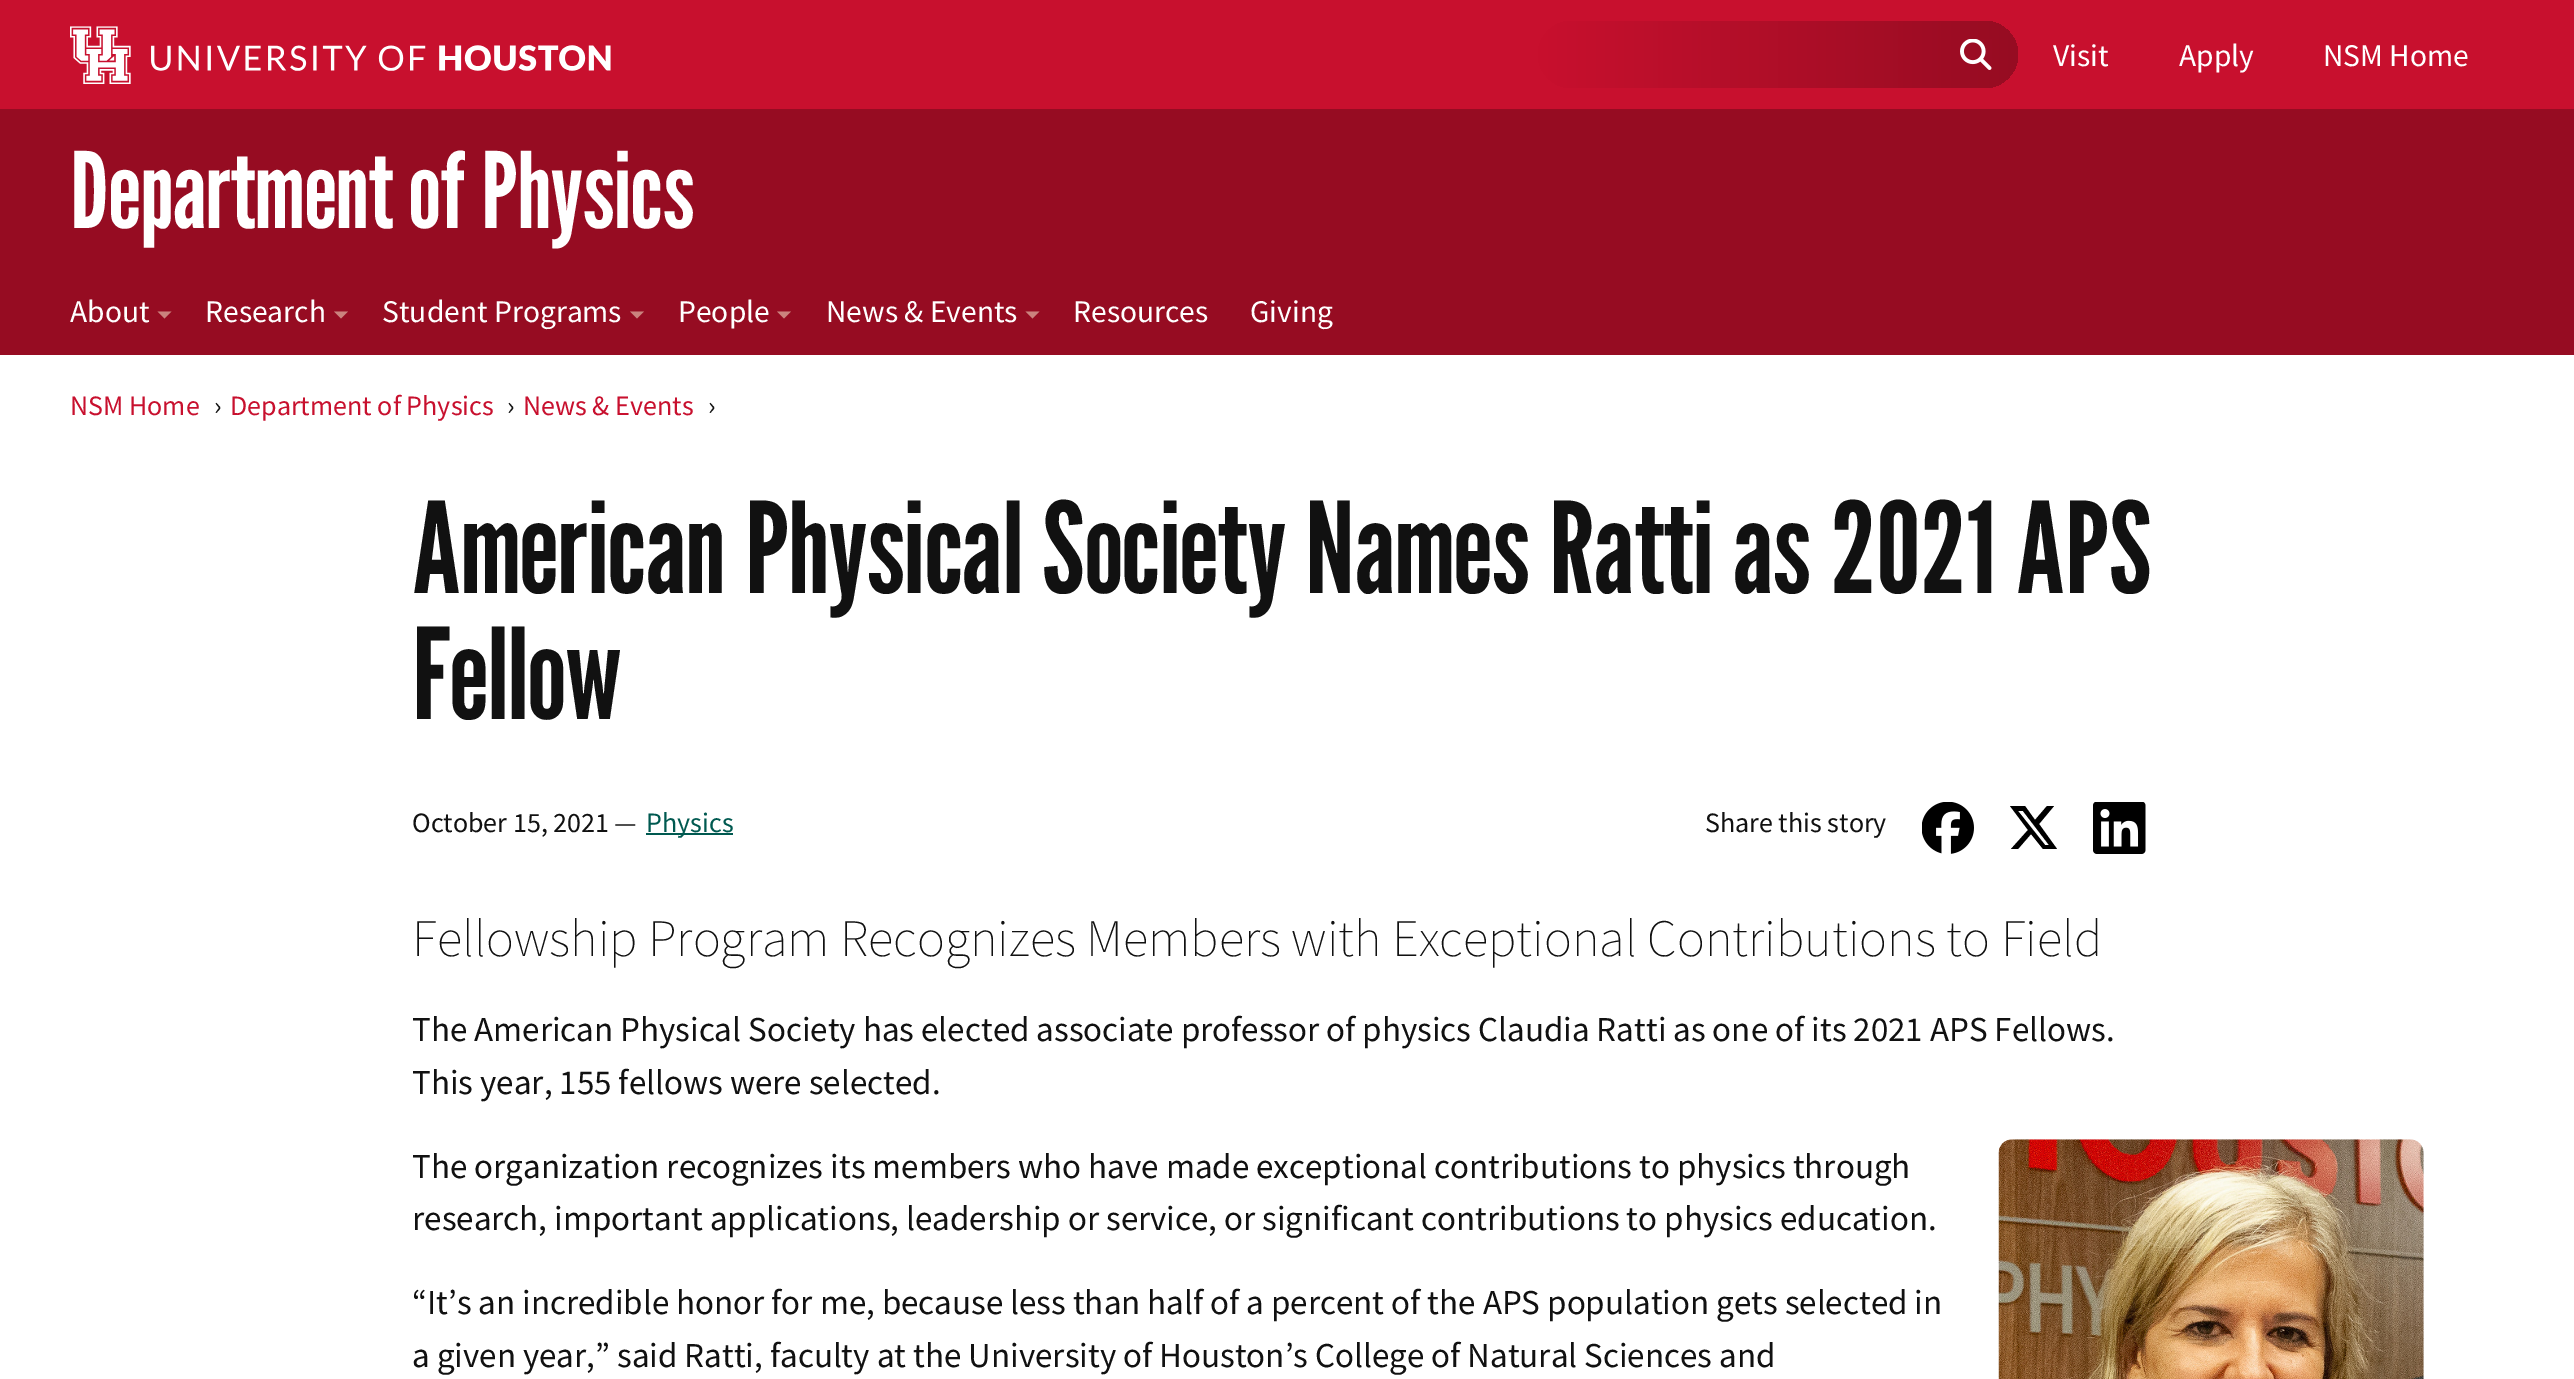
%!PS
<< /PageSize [2574 1379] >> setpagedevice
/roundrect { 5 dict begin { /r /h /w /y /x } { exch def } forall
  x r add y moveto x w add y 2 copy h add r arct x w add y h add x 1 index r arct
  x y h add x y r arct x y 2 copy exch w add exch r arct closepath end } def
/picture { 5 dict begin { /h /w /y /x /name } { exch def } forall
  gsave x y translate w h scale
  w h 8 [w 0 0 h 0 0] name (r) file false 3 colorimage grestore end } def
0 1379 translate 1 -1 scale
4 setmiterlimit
1 setgray
0 0 2574 1379 rectfill
0.784 0.063 0.18 setrgbcolor
0 0 2574 109 rectfill
(img1.rgb) 70 26 541 58 picture
gsave 1538 21 480 67 33.5 roundrect clip newpath
<< /ShadingType 2 /ColorSpace /DeviceRGB /Coords [1538 54 2018 54] /Extend [true true] /Function << /FunctionType 2 /Domain [0 1] /C0 [0.784 0.063 0.18] /C1 [0.588 0.047 0.133] /N 1 >> >> shfill grestore
(img2.rgb) 1960 39 32 31 picture
/SourceSansPro-Regular [31.5 0 0 -31.5 0 0] selectfont
1 setgray
2053 66 moveto (Visit) show
2179 66 moveto (Apply) show
2323 66 moveto (NSM Home) show
0.588 0.047 0.133 setrgbcolor
0 109 2574 246 rectfill
/LeagueGothic-Regular [105 0 0 -105 0 0] selectfont
1 setgray
70 228 moveto (Department of Physics) show
/SourceSansPro-Regular [31.5 0 0 -31.5 0 0] selectfont
70 322 moveto (About) show
0.796 0.514 0.494 setrgbcolor
newpath 157.5 311.5 moveto 171.5 311.5 lineto 164.5 318.5 lineto closepath fill
1 setgray
205 322 moveto (Research) show
0.796 0.514 0.494 setrgbcolor
newpath 334 311.5 moveto 348 311.5 lineto 341 318.5 lineto closepath fill
1 setgray
382 322 moveto (Student Programs) show
0.796 0.514 0.494 setrgbcolor
newpath 630 311.5 moveto 644 311.5 lineto 637 318.5 lineto closepath fill
1 setgray
678 322 moveto (People) show
0.796 0.514 0.494 setrgbcolor
newpath 777 311.5 moveto 791 311.5 lineto 784 318.5 lineto closepath fill
1 setgray
826 322 moveto (News & Events) show
0.796 0.514 0.494 setrgbcolor
newpath 1025.5 311.5 moveto 1039.5 311.5 lineto 1032.5 318.5 lineto closepath fill
1 setgray
1073 322 moveto (Resources) show
1250 322 moveto (Giving) show
/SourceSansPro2-Regular [28 0 0 -28 0 0] selectfont
0.784 0.063 0.18 setrgbcolor
70 415 moveto (NSM Home) show
0.067 setgray
214 415 moveto (›) show
0.784 0.063 0.18 setrgbcolor
230 415 moveto (Department of Physics) show
0.067 setgray
507 415 moveto (›) show
0.784 0.063 0.18 setrgbcolor
523 415 moveto (News & Events) show
0.067 setgray
708 415 moveto (›) show
/LeagueGothic-Regular [126 0 0 -126 0 0] selectfont
412 593 moveto (American Physical Society Names Ratti as 2021 APS) show
412 719 moveto (Fellow) show
/SourceSansPro-Regular [28 0 0 -28 0 0] selectfont
412 832 moveto (October 15, 2021 —) show
0 0.349 0.314 setrgbcolor
646 833 87 2 rectfill
646 832 moveto (Physics) show
0.067 setgray
1705 832 moveto (Share this story) show
(img3.rgb) 1922 802 52 52 picture
0 setgray
newpath 2047 806 moveto 2054 806 lineto 2039 824 lineto 2057 849 lineto 2043 849 lineto 2031 834 lineto 2018 849 lineto 2011 849 lineto 2028 830 lineto 2010 806 lineto 2025 806 lineto 2035 820 lineto closepath 2045 845 moveto 2049 845 lineto 2023 811 lineto 2018 811 lineto closepath fill
(img4.rgb) 2093 802 53 52 picture
/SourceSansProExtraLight-ExtraLight [52.5 0 0 -52.5 0 0] selectfont
0.067 setgray
412 956 moveto (Fellowship Program Recognizes Members with Exceptional Contributions to Field) show
/SourceSansPro-Regular [35 0 0 -35 0 0] selectfont
412 1041 moveto (The American Physical Society has elected associate professor of physics Claudia Ratti as one of its 2021 APS Fellows.) show
412 1094 moveto (This year, 155 fellows were selected.) show
412 1178 moveto (The organization recognizes its members who have made exceptional contributions to physics through) show
412 1230 moveto (research, important applications, leadership or service, or significant contributions to physics education.) show
(img5.rgb) 1998 1139 426 240 picture
412 1314 moveto (“It’s an incredible honor for me, because less than half of a percent of the APS population gets selected in) show
412 1367 moveto (a given year,” said Ratti, faculty at the University of Houston’s College of Natural Sciences and) show
showpage
